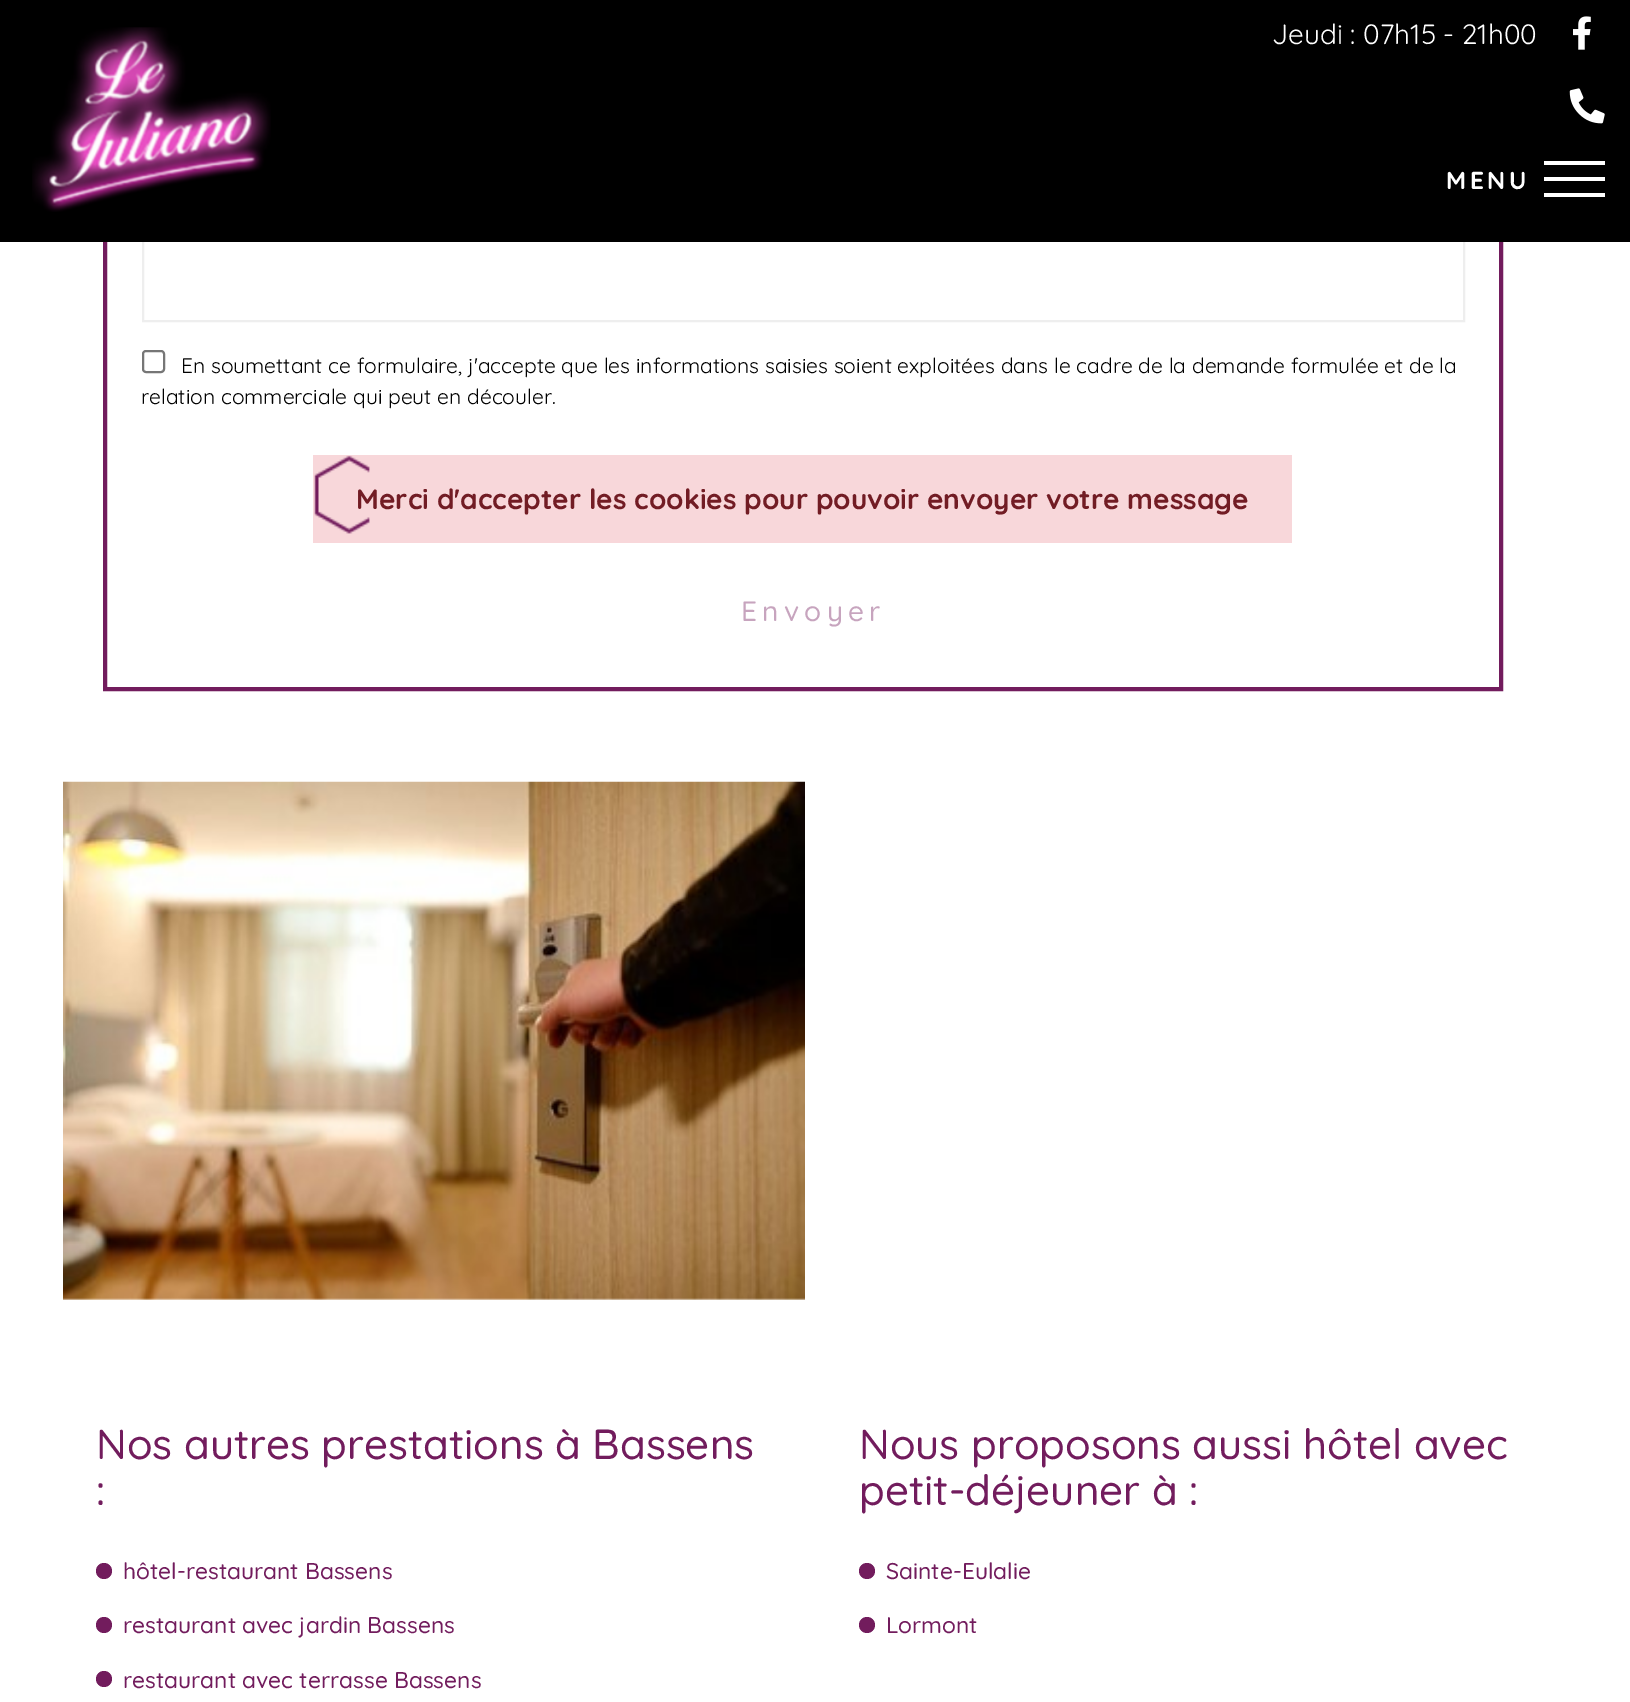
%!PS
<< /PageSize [1630 1702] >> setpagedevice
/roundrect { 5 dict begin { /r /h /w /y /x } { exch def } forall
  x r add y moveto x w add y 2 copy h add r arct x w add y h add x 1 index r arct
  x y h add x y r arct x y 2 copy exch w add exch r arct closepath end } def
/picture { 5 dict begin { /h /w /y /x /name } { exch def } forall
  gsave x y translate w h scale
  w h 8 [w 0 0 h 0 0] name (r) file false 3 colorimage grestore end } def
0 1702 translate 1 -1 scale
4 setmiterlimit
1 setgray
0 0 1630 1702 rectfill
0.447 0.11 0.365 setrgbcolor
4 setlinewidth
105 -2 1396 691 rectstroke
0.933 setgray
2 setlinewidth
143 197 1321 124 rectstroke
0 setgray
0 0 1630 242 rectfill
/Quicksand-Regular [28 0 0 -28 0 0] selectfont
1 setgray
1272 44 moveto (Jeudi : 07h15 - 21h00) show
(img1.rgb) 1573 16 18 34 picture
(img2.rgb) 32 27 239 185 picture
(img3.rgb) 1569 88 36 36 picture
1544 161 61 4 rectfill
/Quicksand-Bold [24.5 0 0 -24.5 0 0] selectfont
1446 189 moveto 3.5 0 (MENU) ashow
1544 177 61 4 rectfill
1544 193 61 4 rectfill
0.463 setgray
143 351 21 21 3 roundrect stroke
/Quicksand-Regular [21 0 0 -21 0 0] selectfont
0 setgray
181 373 moveto (En soumettant ce formulaire, j'accepte que les informations saisies soient exploitées dans le cadre de la demande formulée et de la) show
141 404 moveto (relation commerciale qui peut en découler.) show
0.973 0.843 0.855 setrgbcolor
313 455 979 88 rectfill
/Quicksand-Bold [28 0 0 -28 0 0] selectfont
0.447 0.11 0.141 setrgbcolor
356 509 moveto (Merci d'accepter les cookies pour pouvoir envoyer votre message) show
(img4.rgb) 314 455 56 79 picture
/Quicksand-Medium [28 0 0 -28 0 0] selectfont
0.78 0.643 0.745 setrgbcolor
741 621 moveto 5.25 0 (Envoyer) ashow
(img5.rgb) 63 781 742 519 picture
/Quicksand-Medium [42 0 0 -42 0 0] selectfont
0.447 0.11 0.365 setrgbcolor
96 1459 moveto (Nos autres prestations à Bassens) show
96 1505 moveto (:) show
newpath 104 1571 8 0 360 arc closepath fill
/Quicksand-Medium [22.75 0 0 -22.75 0 0] selectfont
123 1579 moveto (hôtel-restaurant Bassens) show
newpath 104 1625 8 0 360 arc closepath fill
123 1633 moveto (restaurant avec jardin Bassens) show
newpath 104 1679 8 0 360 arc closepath fill
123 1688 moveto (restaurant avec terrasse Bassens) show
/Quicksand-Medium [42 0 0 -42 0 0] selectfont
859 1459 moveto (Nous proposons aussi hôtel avec) show
859 1505 moveto (petit-déjeuner à :) show
newpath 867 1571 8 0 360 arc closepath fill
/Quicksand-Medium [22.75 0 0 -22.75 0 0] selectfont
886 1579 moveto (Sainte-Eulalie) show
newpath 867 1625 8 0 360 arc closepath fill
886 1633 moveto (Lormont) show
showpage
